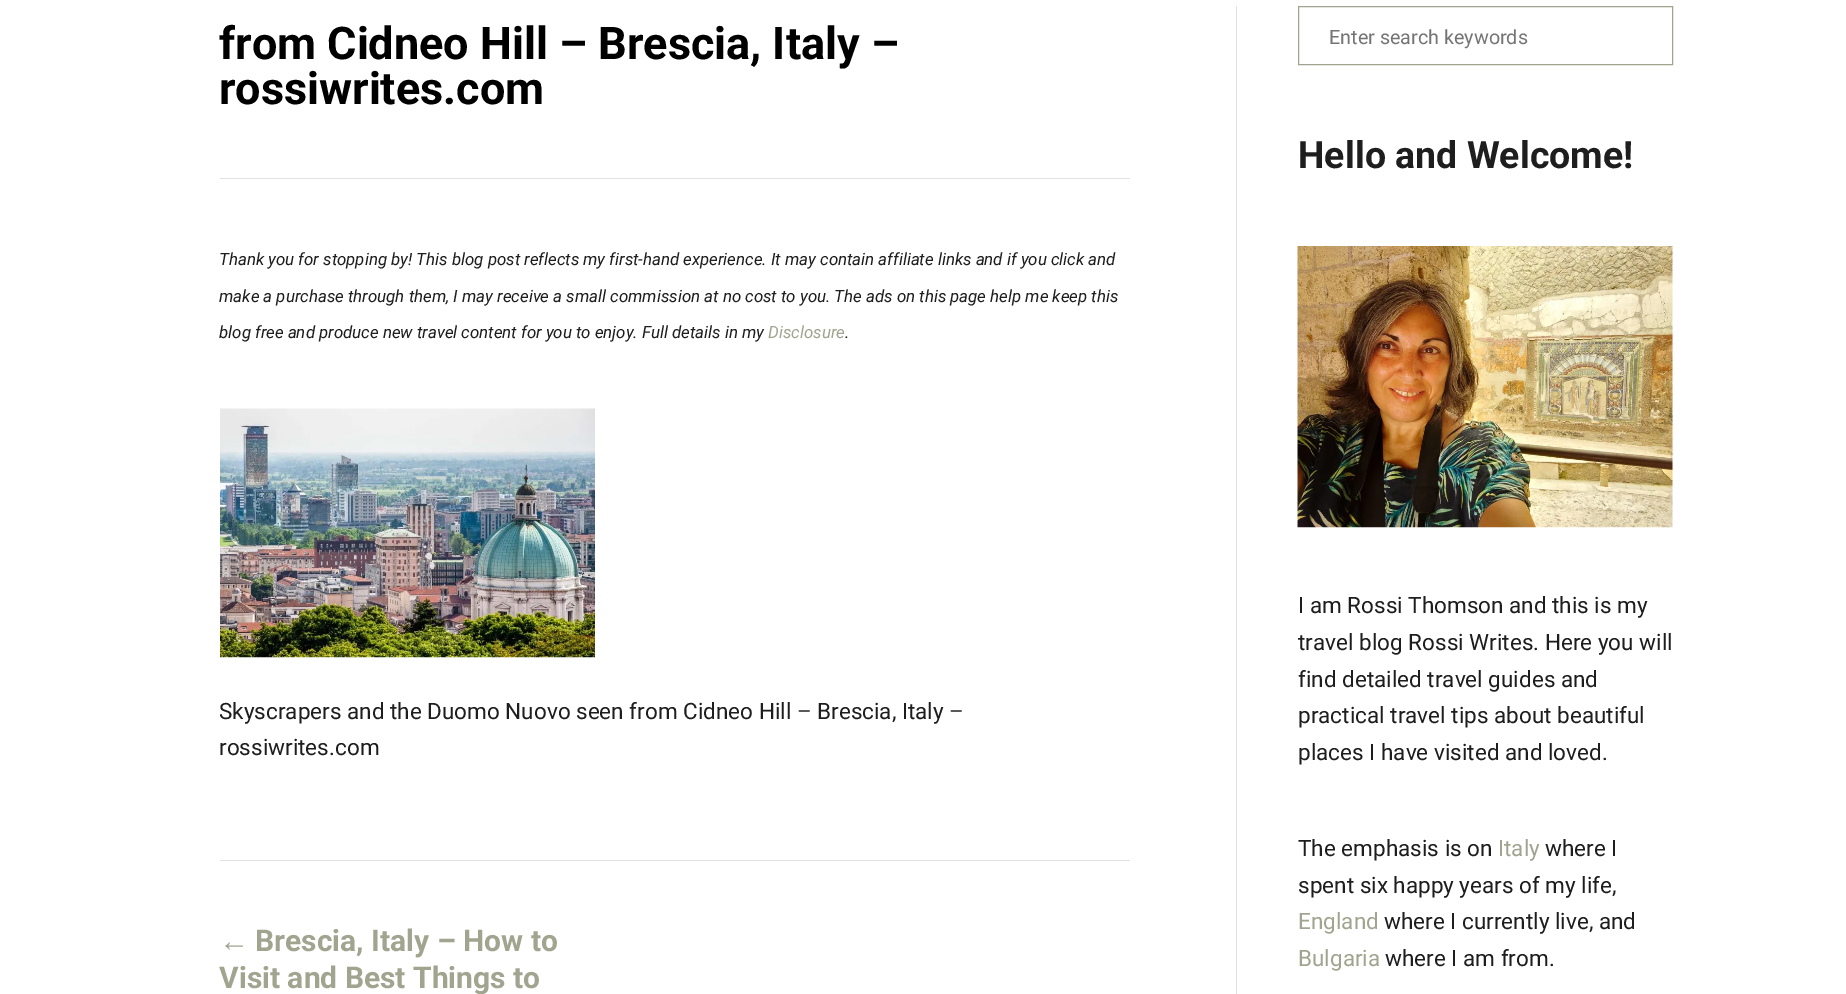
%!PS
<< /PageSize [1846 994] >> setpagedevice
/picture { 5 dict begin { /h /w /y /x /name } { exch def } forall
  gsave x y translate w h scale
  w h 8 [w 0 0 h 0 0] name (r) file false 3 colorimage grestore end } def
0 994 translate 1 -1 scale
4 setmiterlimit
1 setgray
0 0 1846 994 rectfill
0.882 setgray
220 178 910 1 rectfill
/Roboto-Bold [45 0 0 -45 0 0] selectfont
0 setgray
219 59 moveto (from Cidneo Hill – Brescia, Italy –) show
219 104 moveto (rossiwrites.com) show
/Roboto-Italic [16.88 0 0 -16.88 0 0] selectfont
0.118 setgray
219 265 moveto (Thank you for stopping by! This blog post reflects my first-hand experience. It may contain affiliate links and if you click and) show
219 302 moveto (make a purchase through them, I may receive a small commission at no cost to you. The ads on this page help me keep this) show
219 338 moveto (blog free and produce new travel content for you to enjoy. Full details in my) show
0.631 0.643 0.561 setrgbcolor
768 338 moveto (Disclosure) show
0.118 setgray
845 338 moveto (.) show
(img1.rgb) 220 408 375 250 picture
/Roboto-Regular [22.5 0 0 -22.5 0 0] selectfont
219 719 moveto (Skyscrapers and the Duomo Nuovo seen from Cidneo Hill – Brescia, Italy –) show
219 755 moveto (rossiwrites.com) show
0.882 setgray
220 860 910 1 rectfill
/LiberationSans-Bold [30 0 0 -30 0 0] selectfont
0.631 0.643 0.561 setrgbcolor
219 951 moveto (←) show
/Roboto-Bold [30 0 0 -30 0 0] selectfont
255 951 moveto (Brescia, Italy – How to) show
219 988 moveto (Visit and Best Things to) show
0.882 setgray
1236 6 1 988 rectfill
0.631 0.643 0.561 setrgbcolor
1298.5 6.5 374 58 rectstroke
/Roboto-Regular [19.75 0 0 -19.75 0 0] selectfont
0.459 setgray
1329 44 moveto (Enter search keywords) show
/Roboto-Bold [37.5 0 0 -37.5 0 0] selectfont
0.118 setgray
1298 168 moveto (Hello and Welcome!) show
(img2.rgb) 1297 246 376 282 picture
/Roboto-Regular [22.5 0 0 -22.5 0 0] selectfont
1298 613 moveto (I am Rossi Thomson and this is my) show
1298 650 moveto (travel blog Rossi Writes. Here you will) show
1298 687 moveto (find detailed travel guides and) show
1298 723 moveto (practical travel tips about beautiful) show
1298 760 moveto (places I have visited and loved.) show
1298 856 moveto (The emphasis is on) show
0.631 0.643 0.561 setrgbcolor
1498 856 moveto (Italy) show
0.118 setgray
1545 856 moveto (where I) show
1298 893 moveto (spent six happy years of my life,) show
0.631 0.643 0.561 setrgbcolor
1298 929 moveto (England) show
0.118 setgray
1384 929 moveto (where I currently live, and) show
0.631 0.643 0.561 setrgbcolor
1298 966 moveto (Bulgaria) show
0.118 setgray
1385 966 moveto (where I am from.) show
showpage
